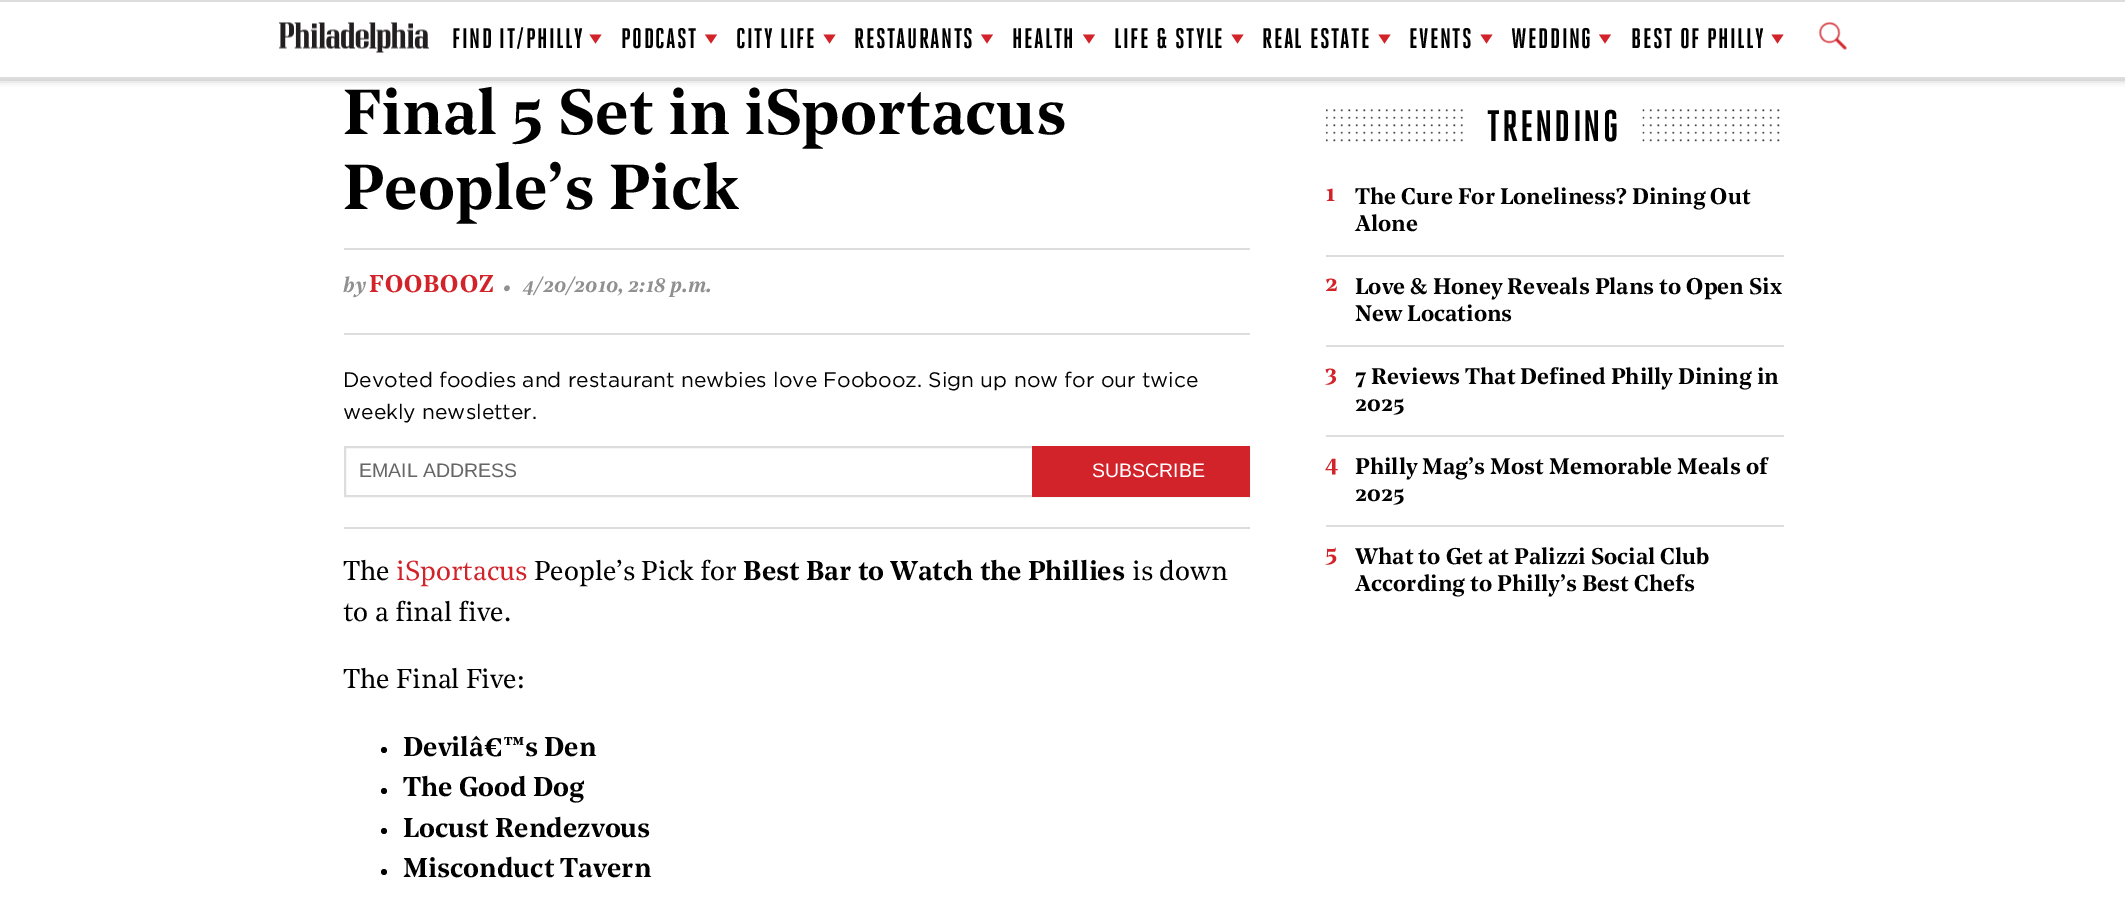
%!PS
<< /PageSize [2125 905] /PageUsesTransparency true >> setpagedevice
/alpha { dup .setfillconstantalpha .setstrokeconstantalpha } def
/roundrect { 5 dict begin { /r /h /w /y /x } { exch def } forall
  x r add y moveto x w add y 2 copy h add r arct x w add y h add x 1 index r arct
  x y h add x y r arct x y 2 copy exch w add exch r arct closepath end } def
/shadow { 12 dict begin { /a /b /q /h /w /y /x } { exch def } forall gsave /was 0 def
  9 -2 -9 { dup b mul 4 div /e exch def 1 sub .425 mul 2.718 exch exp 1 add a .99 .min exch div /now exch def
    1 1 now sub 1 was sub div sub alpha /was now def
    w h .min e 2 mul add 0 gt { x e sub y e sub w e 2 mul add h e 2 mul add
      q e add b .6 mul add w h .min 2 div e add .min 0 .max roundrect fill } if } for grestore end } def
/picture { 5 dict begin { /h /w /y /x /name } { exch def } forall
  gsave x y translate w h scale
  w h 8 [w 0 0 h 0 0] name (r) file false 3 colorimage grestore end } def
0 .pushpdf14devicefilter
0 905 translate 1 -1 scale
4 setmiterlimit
1 setgray
0 0 2125 905 rectfill
0 setgray
0 0 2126 78 0 4 0.5 shadow
1 setgray
0 2 2125 75 rectfill
0.867 setgray
0 0 2125 2 rectfill
0 77 2125 2 rectfill
(img1.rgb) 279 22 150 31 picture
/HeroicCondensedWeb-SemiBold [27 0 0 -27 0 0] selectfont
0 setgray
452 48 moveto 1.4 0 (FIND IT/PHILLY) ashow
0.824 0.137 0.165 setrgbcolor
newpath 589.5 34.5 moveto 601.5 34.5 lineto 595.5 43.5 lineto closepath fill
0 setgray
621 48 moveto 1.4 0 (PODCAST) ashow
0.824 0.137 0.165 setrgbcolor
newpath 705 34.5 moveto 717 34.5 lineto 711 43.5 lineto closepath fill
0 setgray
736 48 moveto 1.4 0 (CITY LIFE) ashow
0.824 0.137 0.165 setrgbcolor
newpath 823.5 34.5 moveto 835.5 34.5 lineto 829.5 43.5 lineto closepath fill
0 setgray
854 48 moveto 1.4 0 (RESTAURANTS) ashow
0.824 0.137 0.165 setrgbcolor
newpath 981 34.5 moveto 993 34.5 lineto 987 43.5 lineto closepath fill
0 setgray
1012 48 moveto 1.4 0 (HEALTH) ashow
0.824 0.137 0.165 setrgbcolor
newpath 1083 34.5 moveto 1095 34.5 lineto 1089 43.5 lineto closepath fill
0 setgray
1114 48 moveto 1.4 0 (LIFE & STYLE) ashow
0.824 0.137 0.165 setrgbcolor
newpath 1231.5 34.5 moveto 1243.5 34.5 lineto 1237.5 43.5 lineto closepath fill
0 setgray
1262 48 moveto 1.4 0 (REAL ESTATE) ashow
0.824 0.137 0.165 setrgbcolor
newpath 1378.5 34.5 moveto 1390.5 34.5 lineto 1384.5 43.5 lineto closepath fill
0 setgray
1409 48 moveto 1.4 0 (EVENTS) ashow
0.824 0.137 0.165 setrgbcolor
newpath 1480.5 34.5 moveto 1492.5 34.5 lineto 1486.5 43.5 lineto closepath fill
0 setgray
1511 48 moveto 1.4 0 (WEDDING) ashow
0.824 0.137 0.165 setrgbcolor
newpath 1599 34.5 moveto 1611 34.5 lineto 1605 43.5 lineto closepath fill
0 setgray
1631 48 moveto 1.4 0 (BEST OF PHILLY) ashow
0.824 0.137 0.165 setrgbcolor
newpath 1771.5 34.5 moveto 1783.5 34.5 lineto 1777.5 43.5 lineto closepath fill
(img2.rgb) 1819 22 28 28 picture
/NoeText-SemiBold [63 0 0 -63 0 0] selectfont
0 setgray
343 134 moveto (Final 5 Set in iSportacus) show
343 209 moveto (People’s Pick) show
0.867 setgray
344 248 906 2 rectfill
344 333 906 2 rectfill
/NoeText-SemiBoldItalic [21 0 0 -21 0 0] selectfont
0.565 setgray
343 292 moveto (by) show
/NoeText-SemiBold [24 0 0 -24 0 0] selectfont
0.824 0.137 0.165 setrgbcolor
369 292 moveto 1 0 (FOOBOOZ) ashow
/NoeText-SemiBoldItalic [33 0 0 -33 0 0] selectfont
0.565 setgray
502 298 moveto (·) show
/NoeText-SemiBoldItalic [21 0 0 -21 0 0] selectfont
523 292 moveto (4/20/2010, 2:18 p.m.) show
0.867 setgray
344 527 906 2 rectfill
/Gotham-Regular [21 0 0 -21 0 0] selectfont
0 setgray
343 387 moveto (Devoted foodies and restaurant newbies love Foobooz. Sign up now for our twice) show
343 419 moveto (weekly newsletter.) show
0.867 setgray
2 setlinewidth
345 447 904 49 rectstroke
/LiberationSans-Regular [19.5 0 0 -19.5 0 0] selectfont
0.4 setgray
359 477 moveto (EMAIL ADDRESS) show
0.824 0.137 0.165 setrgbcolor
1032 446 218 51 rectfill
1 setgray
1092 477 moveto (SUBSCRIBE) show
/NoeText-Regular [27 0 0 -27 0 0] selectfont
0 setgray
343 580 moveto (The) show
0.824 0.137 0.165 setrgbcolor
396 580 moveto (iSportacus) show
0 setgray
534 580 moveto (People’s Pick for) show
/NoeText-SemiBold [27 0 0 -27 0 0] selectfont
743 580 moveto (Best Bar to Watch the Phillies) show
/NoeText-Regular [27 0 0 -27 0 0] selectfont
1132 580 moveto (is down) show
343 621 moveto (to a final five.) show
343 688 moveto (The Final Five:) show
newpath 384 750 3 0 360 arc closepath fill
/NoeText-SemiBold [27 0 0 -27 0 0] selectfont
403 756 moveto (Devilâ€™s Den) show
newpath 384 791 3 0 360 arc closepath fill
403 796 moveto (The Good Dog) show
newpath 384 831 3 0 360 arc closepath fill
403 837 moveto (Locust Rendezvous) show
newpath 384 872 3 0 360 arc closepath fill
403 877 moveto (Misconduct Tavern) show
(img3.rgb) 1326 109 137 33 picture
/HeroicCondensedWeb-SemiBold [42 0 0 -42 0 0] selectfont
1487 141 moveto 2 0 (TRENDING) ashow
(img4.rgb) 1642 109 138 33 picture
0.867 setgray
1326 255 458 2 rectfill
/NoeText-SemiBold [24 0 0 -24 0 0] selectfont
0.824 0.137 0.165 setrgbcolor
1325 201 moveto (1) show
/NoeText-SemiBold [22.5 0 0 -22.5 0 0] selectfont
0 setgray
1355 204 moveto (The Cure For Loneliness? Dining Out) show
1355 231 moveto (Alone) show
0.867 setgray
1326 345 458 2 rectfill
/NoeText-SemiBold [24 0 0 -24 0 0] selectfont
0.824 0.137 0.165 setrgbcolor
1325 291 moveto (2) show
/NoeText-SemiBold [22.5 0 0 -22.5 0 0] selectfont
0 setgray
1355 294 moveto (Love & Honey Reveals Plans to Open Six) show
1355 321 moveto (New Locations) show
0.867 setgray
1326 435 458 2 rectfill
/NoeText-SemiBold [24 0 0 -24 0 0] selectfont
0.824 0.137 0.165 setrgbcolor
1325 381 moveto (3) show
/NoeText-SemiBold [22.5 0 0 -22.5 0 0] selectfont
0 setgray
1355 384 moveto (7 Reviews That Defined Philly Dining in) show
1355 411 moveto (2025) show
0.867 setgray
1326 525 458 2 rectfill
/NoeText-SemiBold [24 0 0 -24 0 0] selectfont
0.824 0.137 0.165 setrgbcolor
1325 471 moveto (4) show
/NoeText-SemiBold [22.5 0 0 -22.5 0 0] selectfont
0 setgray
1355 474 moveto (Philly Mag’s Most Memorable Meals of) show
1355 501 moveto (2025) show
/NoeText-SemiBold [24 0 0 -24 0 0] selectfont
0.824 0.137 0.165 setrgbcolor
1325 561 moveto (5) show
/NoeText-SemiBold [22.5 0 0 -22.5 0 0] selectfont
0 setgray
1355 564 moveto (What to Get at Palizzi Social Club) show
1355 591 moveto (According to Philly’s Best Chefs) show
.poppdf14devicefilter showpage
